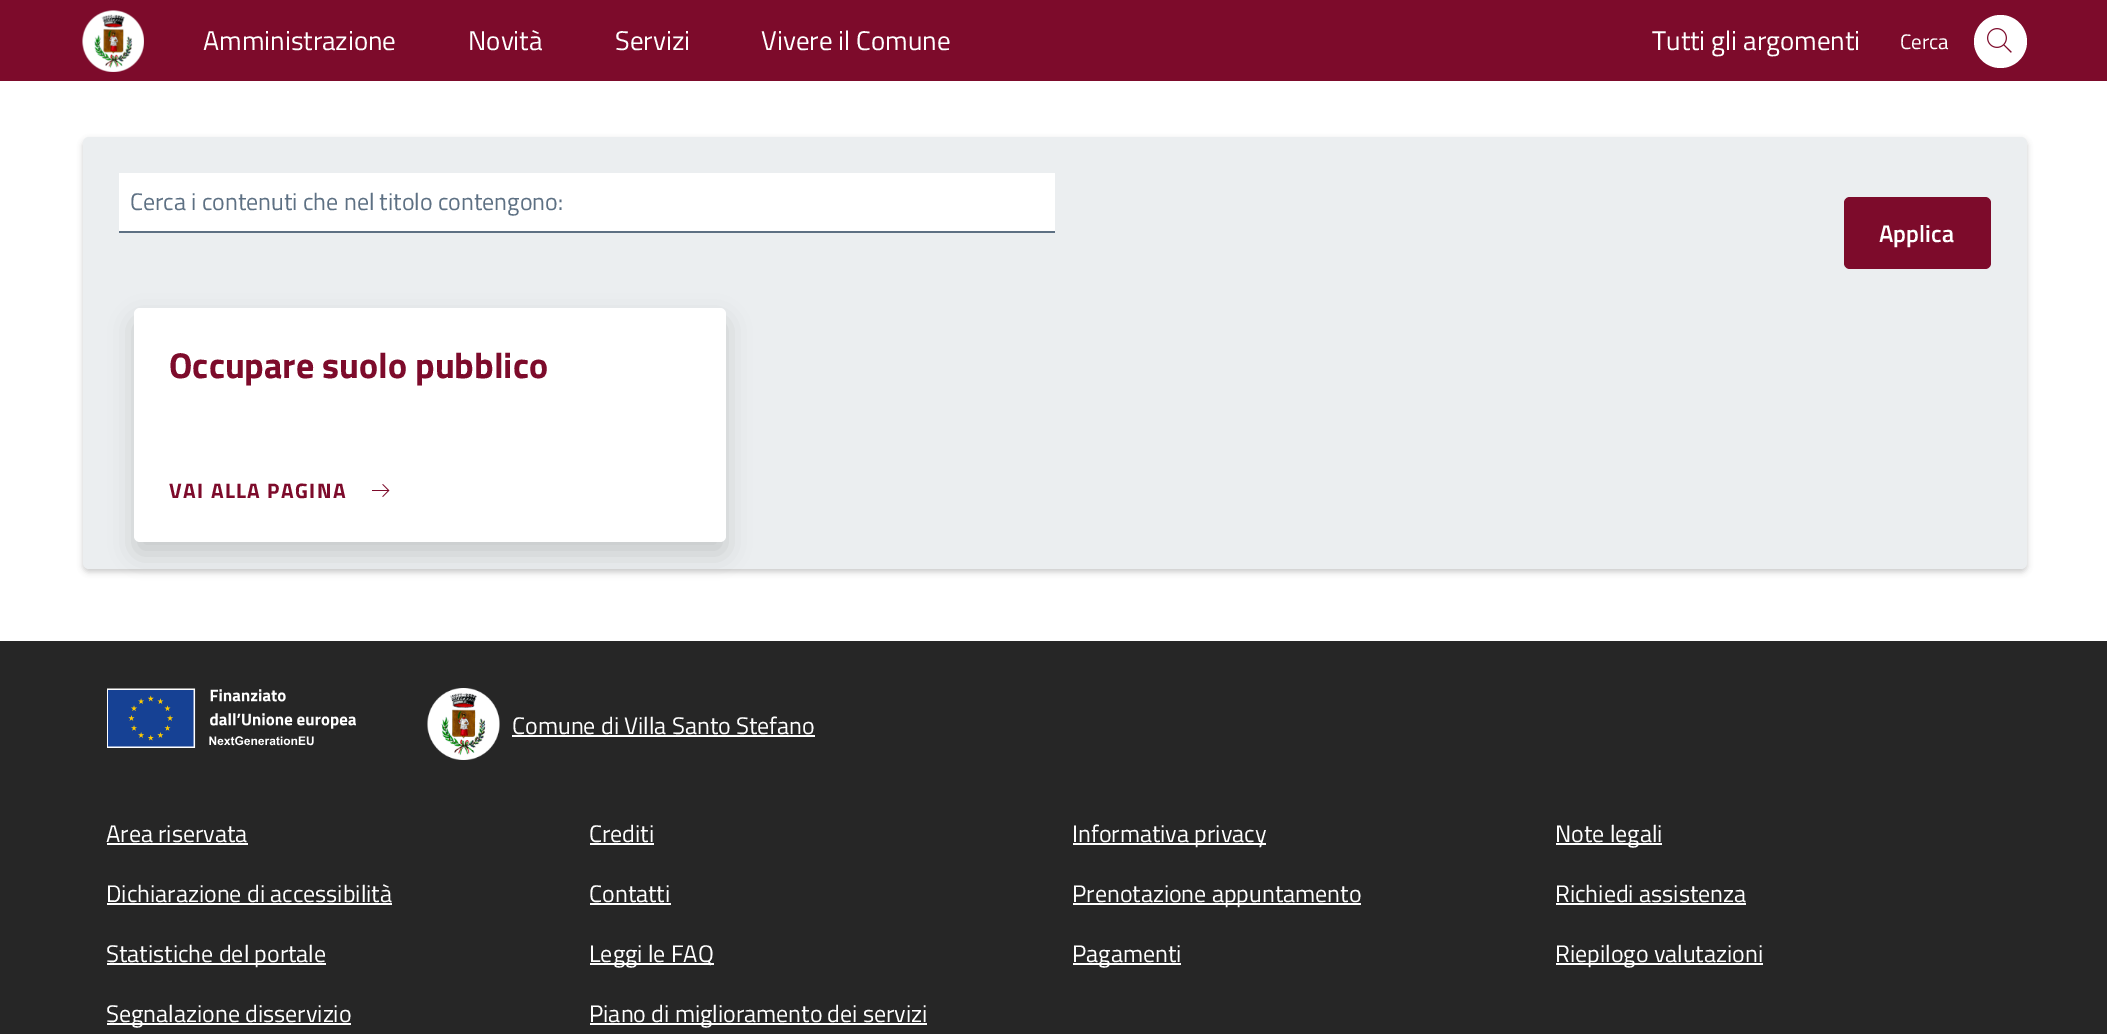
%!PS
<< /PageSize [2107 1034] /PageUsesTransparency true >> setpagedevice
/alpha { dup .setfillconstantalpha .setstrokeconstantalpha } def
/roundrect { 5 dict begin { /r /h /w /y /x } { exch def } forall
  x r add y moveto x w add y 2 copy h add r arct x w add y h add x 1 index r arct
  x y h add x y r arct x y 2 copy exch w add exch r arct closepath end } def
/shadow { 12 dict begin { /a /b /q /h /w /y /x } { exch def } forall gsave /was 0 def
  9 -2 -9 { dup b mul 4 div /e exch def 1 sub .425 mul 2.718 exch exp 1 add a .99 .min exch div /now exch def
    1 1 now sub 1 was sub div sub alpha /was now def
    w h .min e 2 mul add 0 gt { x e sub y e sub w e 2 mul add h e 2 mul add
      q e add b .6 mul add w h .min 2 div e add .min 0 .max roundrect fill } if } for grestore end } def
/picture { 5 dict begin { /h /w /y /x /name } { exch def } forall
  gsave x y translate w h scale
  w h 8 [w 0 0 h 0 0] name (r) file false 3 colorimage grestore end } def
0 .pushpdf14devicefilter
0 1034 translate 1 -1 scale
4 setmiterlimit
1 setgray
0 0 2107 1034 rectfill
0.49 0.043 0.169 setrgbcolor
0 0 2107 81 rectfill
(img1.rgb) 82 10 62 62 picture
/TitilliumWeb-Regular [27 0 0 -27 0 0] selectfont
1 setgray
203 50 moveto (Amministrazione) show
468 50 moveto (Novità) show
615 50 moveto (Servizi) show
761 50 moveto (Vivere il Comune) show
1652 50 moveto (Tutti gli argomenti) show
/TitilliumWeb-Regular [21 0 0 -21 0 0] selectfont
1900 49 moveto (Cerca) show
newpath 2000.5 41.5 26.5 0 360 arc closepath fill
(img2.rgb) 1987 28 25 25 picture
0 setgray
83 140 1944 432 6 3 0.2 shadow
0.922 0.933 0.941 setrgbcolor
83 137 1944 432 6 roundrect fill
1 setgray
119 173 936 58 rectfill
0.365 0.439 0.514 setrgbcolor
119 231 936 2 rectfill
/TitilliumWeb-Regular [24 0 0 -24 0 0] selectfont
130 210 moveto (Cerca i contenuti che nel titolo contengono:) show
0.49 0.043 0.169 setrgbcolor
1844 197 147 72 6 roundrect fill
/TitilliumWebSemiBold-SemiBold [24 0 0 -24 0 0] selectfont
1 setgray
1879 242 moveto (Applica) show
0 setgray
134 320 592 234 6 12 0.15 shadow
1 setgray
134 308 592 234 6 roundrect fill
/TitilliumWeb-Bold [36 0 0 -36 0 0] selectfont
0.49 0.043 0.169 setrgbcolor
169 378 moveto (Occupare suolo pubblico) show
/TitilliumWeb-Bold [21 0 0 -21 0 0] selectfont
169 498 moveto 1.4 0 (VAI ALLA PAGINA) ashow
(img3.rgb) 372 484 18 13 picture
0.149 setgray
0 641 2107 393 rectfill
(img4.rgb) 107 688 249 60 picture
(img5.rgb) 427 688 73 72 picture
/TitilliumWeb-Regular [24 0 0 -24 0 0] selectfont
1 setgray
512 734 moveto (Comune di Villa Santo Stefano) show
512 735 303 2 rectfill
106 842 moveto (Area riservata) show
107 843 141 2 rectfill
589 842 moveto (Crediti) show
590 843 64 2 rectfill
1073 843 193 2 rectfill
1072 842 moveto (Informativa privacy) show
1556 843 106 2 rectfill
1555 842 moveto (Note legali) show
106 902 moveto (Dichiarazione di accessibilità) show
107 903 285 2 rectfill
589 902 moveto (Contatti) show
590 903 81 2 rectfill
1073 903 288 2 rectfill
1072 902 moveto (Prenotazione appuntamento) show
1555 902 moveto (Richiedi assistenza) show
1556 903 190 2 rectfill
107 963 219 2 rectfill
106 962 moveto (Statistiche del portale) show
590 963 124 2 rectfill
589 962 moveto (Leggi le FAQ) show
1073 963 108 2 rectfill
1072 962 moveto (Pagamenti) show
1556 963 207 2 rectfill
1555 962 moveto (Riepilogo valutazioni) show
107 1023 244 2 rectfill
106 1022 moveto (Segnalazione disservizio) show
590 1023 337 2 rectfill
589 1022 moveto (Piano di miglioramento dei servizi) show
.poppdf14devicefilter showpage
